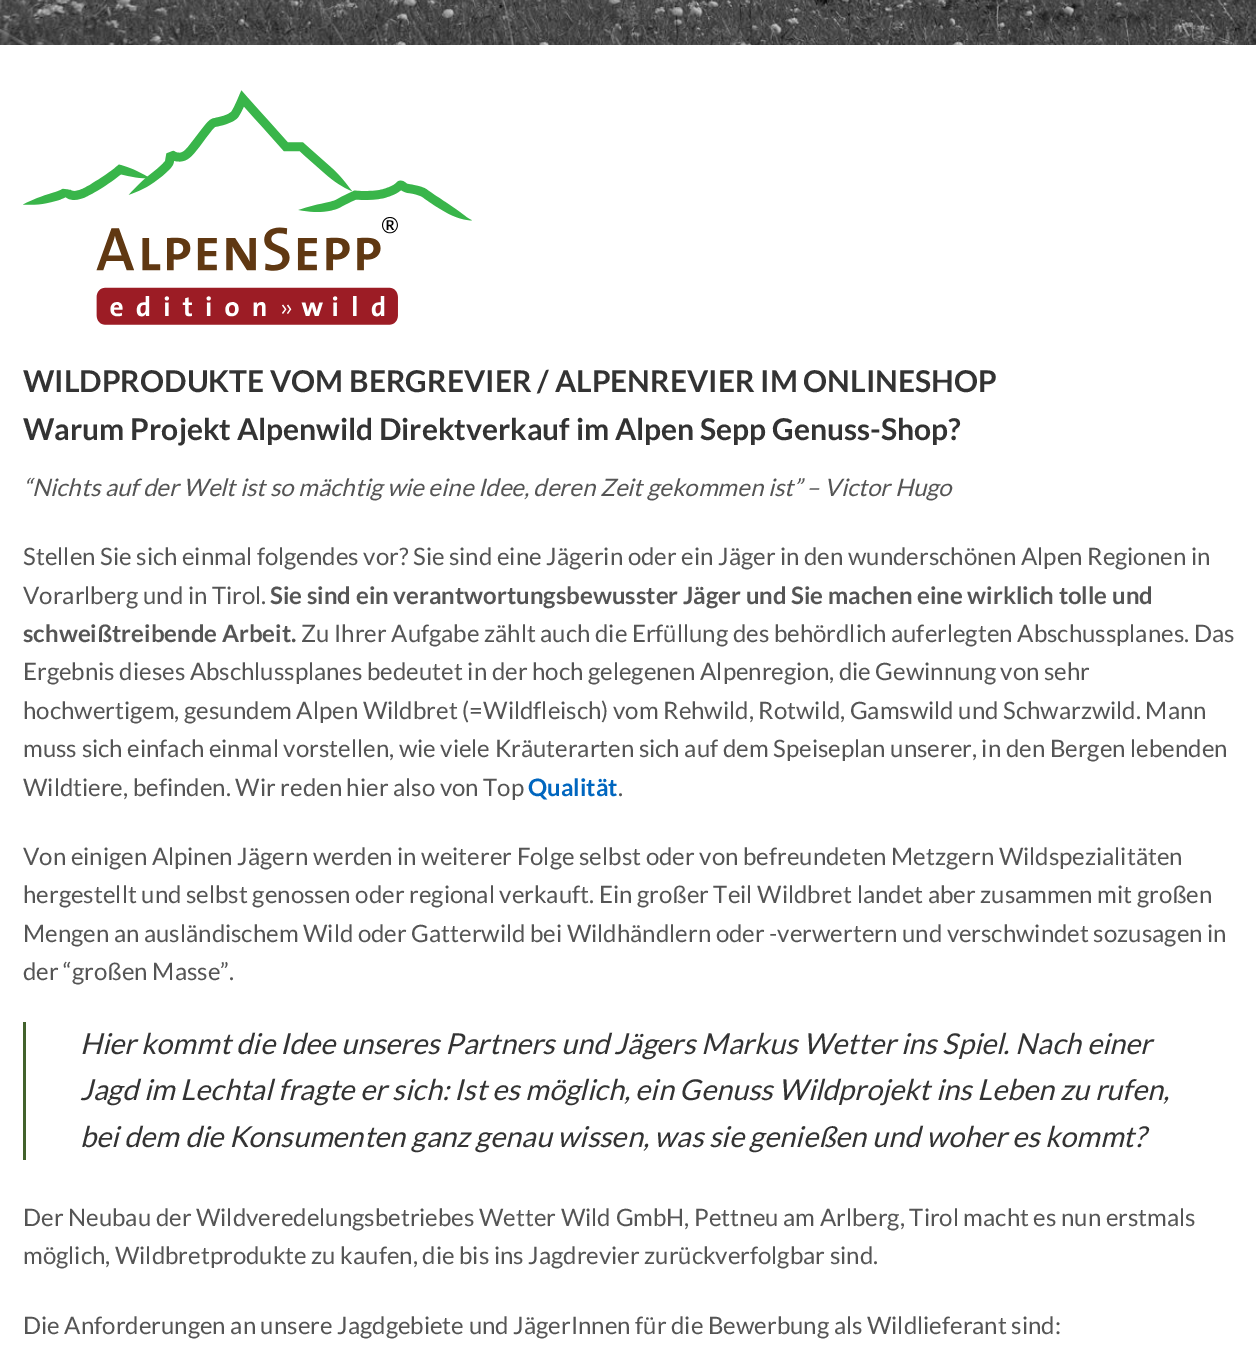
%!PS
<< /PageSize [1256 1355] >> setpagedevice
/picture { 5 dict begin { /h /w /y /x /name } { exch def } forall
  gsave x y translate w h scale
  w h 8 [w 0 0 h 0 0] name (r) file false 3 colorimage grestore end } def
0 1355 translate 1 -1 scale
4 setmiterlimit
1 setgray
0 0 1256 1355 rectfill
(img1.rgb) 0 0 1256 45 picture
(img2.rgb) 23 90 449 235 picture
/Lato-Bold [30 0 0 -30 0 0] selectfont
0.2 setgray
23 392 moveto (WILDPRODUKTE VOM BERGREVIER / ALPENREVIER IM ONLINESHOP) show
23 440 moveto (Warum Projekt Alpenwild Direktverkauf im Alpen Sepp Genuss-Shop?) show
/Lato-Italic [24 0 0 -24 0 0] selectfont
0.333 setgray
23 496 moveto (“Nichts auf der Welt ist so mächtig wie eine Idee, deren Zeit gekommen ist” – Victor Hugo) show
/Lato-Regular [24 0 0 -24 0 0] selectfont
23 565 moveto (Stellen Sie sich einmal folgendes vor? Sie sind eine Jägerin oder ein Jäger in den wunderschönen Alpen Regionen in) show
23 604 moveto (Vorarlberg und in Tirol.) show
/Lato-Bold [24 0 0 -24 0 0] selectfont
270 604 moveto (Sie sind ein verantwortungsbewusster Jäger und Sie machen eine wirklich tolle und) show
23 642 moveto (schweißtreibende Arbeit.) show
/Lato-Regular [24 0 0 -24 0 0] selectfont
301 642 moveto (Zu Ihrer Aufgabe zählt auch die Erfüllung des behördlich auferlegten Abschussplanes. Das) show
23 680 moveto (Ergebnis dieses Abschlussplanes bedeutet in der hoch gelegenen Alpenregion, die Gewinnung von sehr) show
23 719 moveto (hochwertigem, gesundem Alpen Wildbret \(=Wildfleisch\) vom Rehwild, Rotwild, Gamswild und Schwarzwild. Mann) show
23 757 moveto (muss sich einfach einmal vorstellen, wie viele Kräuterarten sich auf dem Speiseplan unserer, in den Bergen lebenden) show
23 796 moveto (Wildtiere, befinden. Wir reden hier also von Top) show
/Lato-Bold [24 0 0 -24 0 0] selectfont
0 0.4 0.749 setrgbcolor
528 796 moveto (Qualität) show
/Lato-Regular [24 0 0 -24 0 0] selectfont
0.333 setgray
618 796 moveto (.) show
23 865 moveto (Von einigen Alpinen Jägern werden in weiterer Folge selbst oder von befreundeten Metzgern Wildspezialitäten) show
23 903 moveto (hergestellt und selbst genossen oder regional verkauft. Ein großer Teil Wildbret landet aber zusammen mit großen) show
23 942 moveto (Mengen an ausländischem Wild oder Gatterwild bei Wildhändlern oder -verwertern und verschwindet sozusagen in) show
23 980 moveto (der “großen Masse”.) show
0.259 0.384 0.173 setrgbcolor
23 1022 3 138 rectfill
/Lato-Italic [28.8 0 0 -28.8 0 0] selectfont
0.2 setgray
80 1054 moveto (Hier kommt die Idee unseres Partners und Jägers Markus Wetter ins Spiel. Nach einer) show
80 1100 moveto (Jagd im Lechtal fragte er sich: Ist es möglich, ein Genuss Wildprojekt ins Leben zu rufen,) show
80 1147 moveto (bei dem die Konsumenten ganz genau wissen, was sie genießen und woher es kommt?) show
/Lato-Regular [24 0 0 -24 0 0] selectfont
0.333 setgray
23 1226 moveto (Der Neubau der Wildveredelungsbetriebes Wetter Wild GmbH, Pettneu am Arlberg, Tirol macht es nun erstmals) show
23 1264 moveto (möglich, Wildbretprodukte zu kaufen, die bis ins Jagdrevier zurückverfolgbar sind.) show
23 1334 moveto (Die Anforderungen an unsere Jagdgebiete und JägerInnen für die Bewerbung als Wildlieferant sind:) show
showpage
